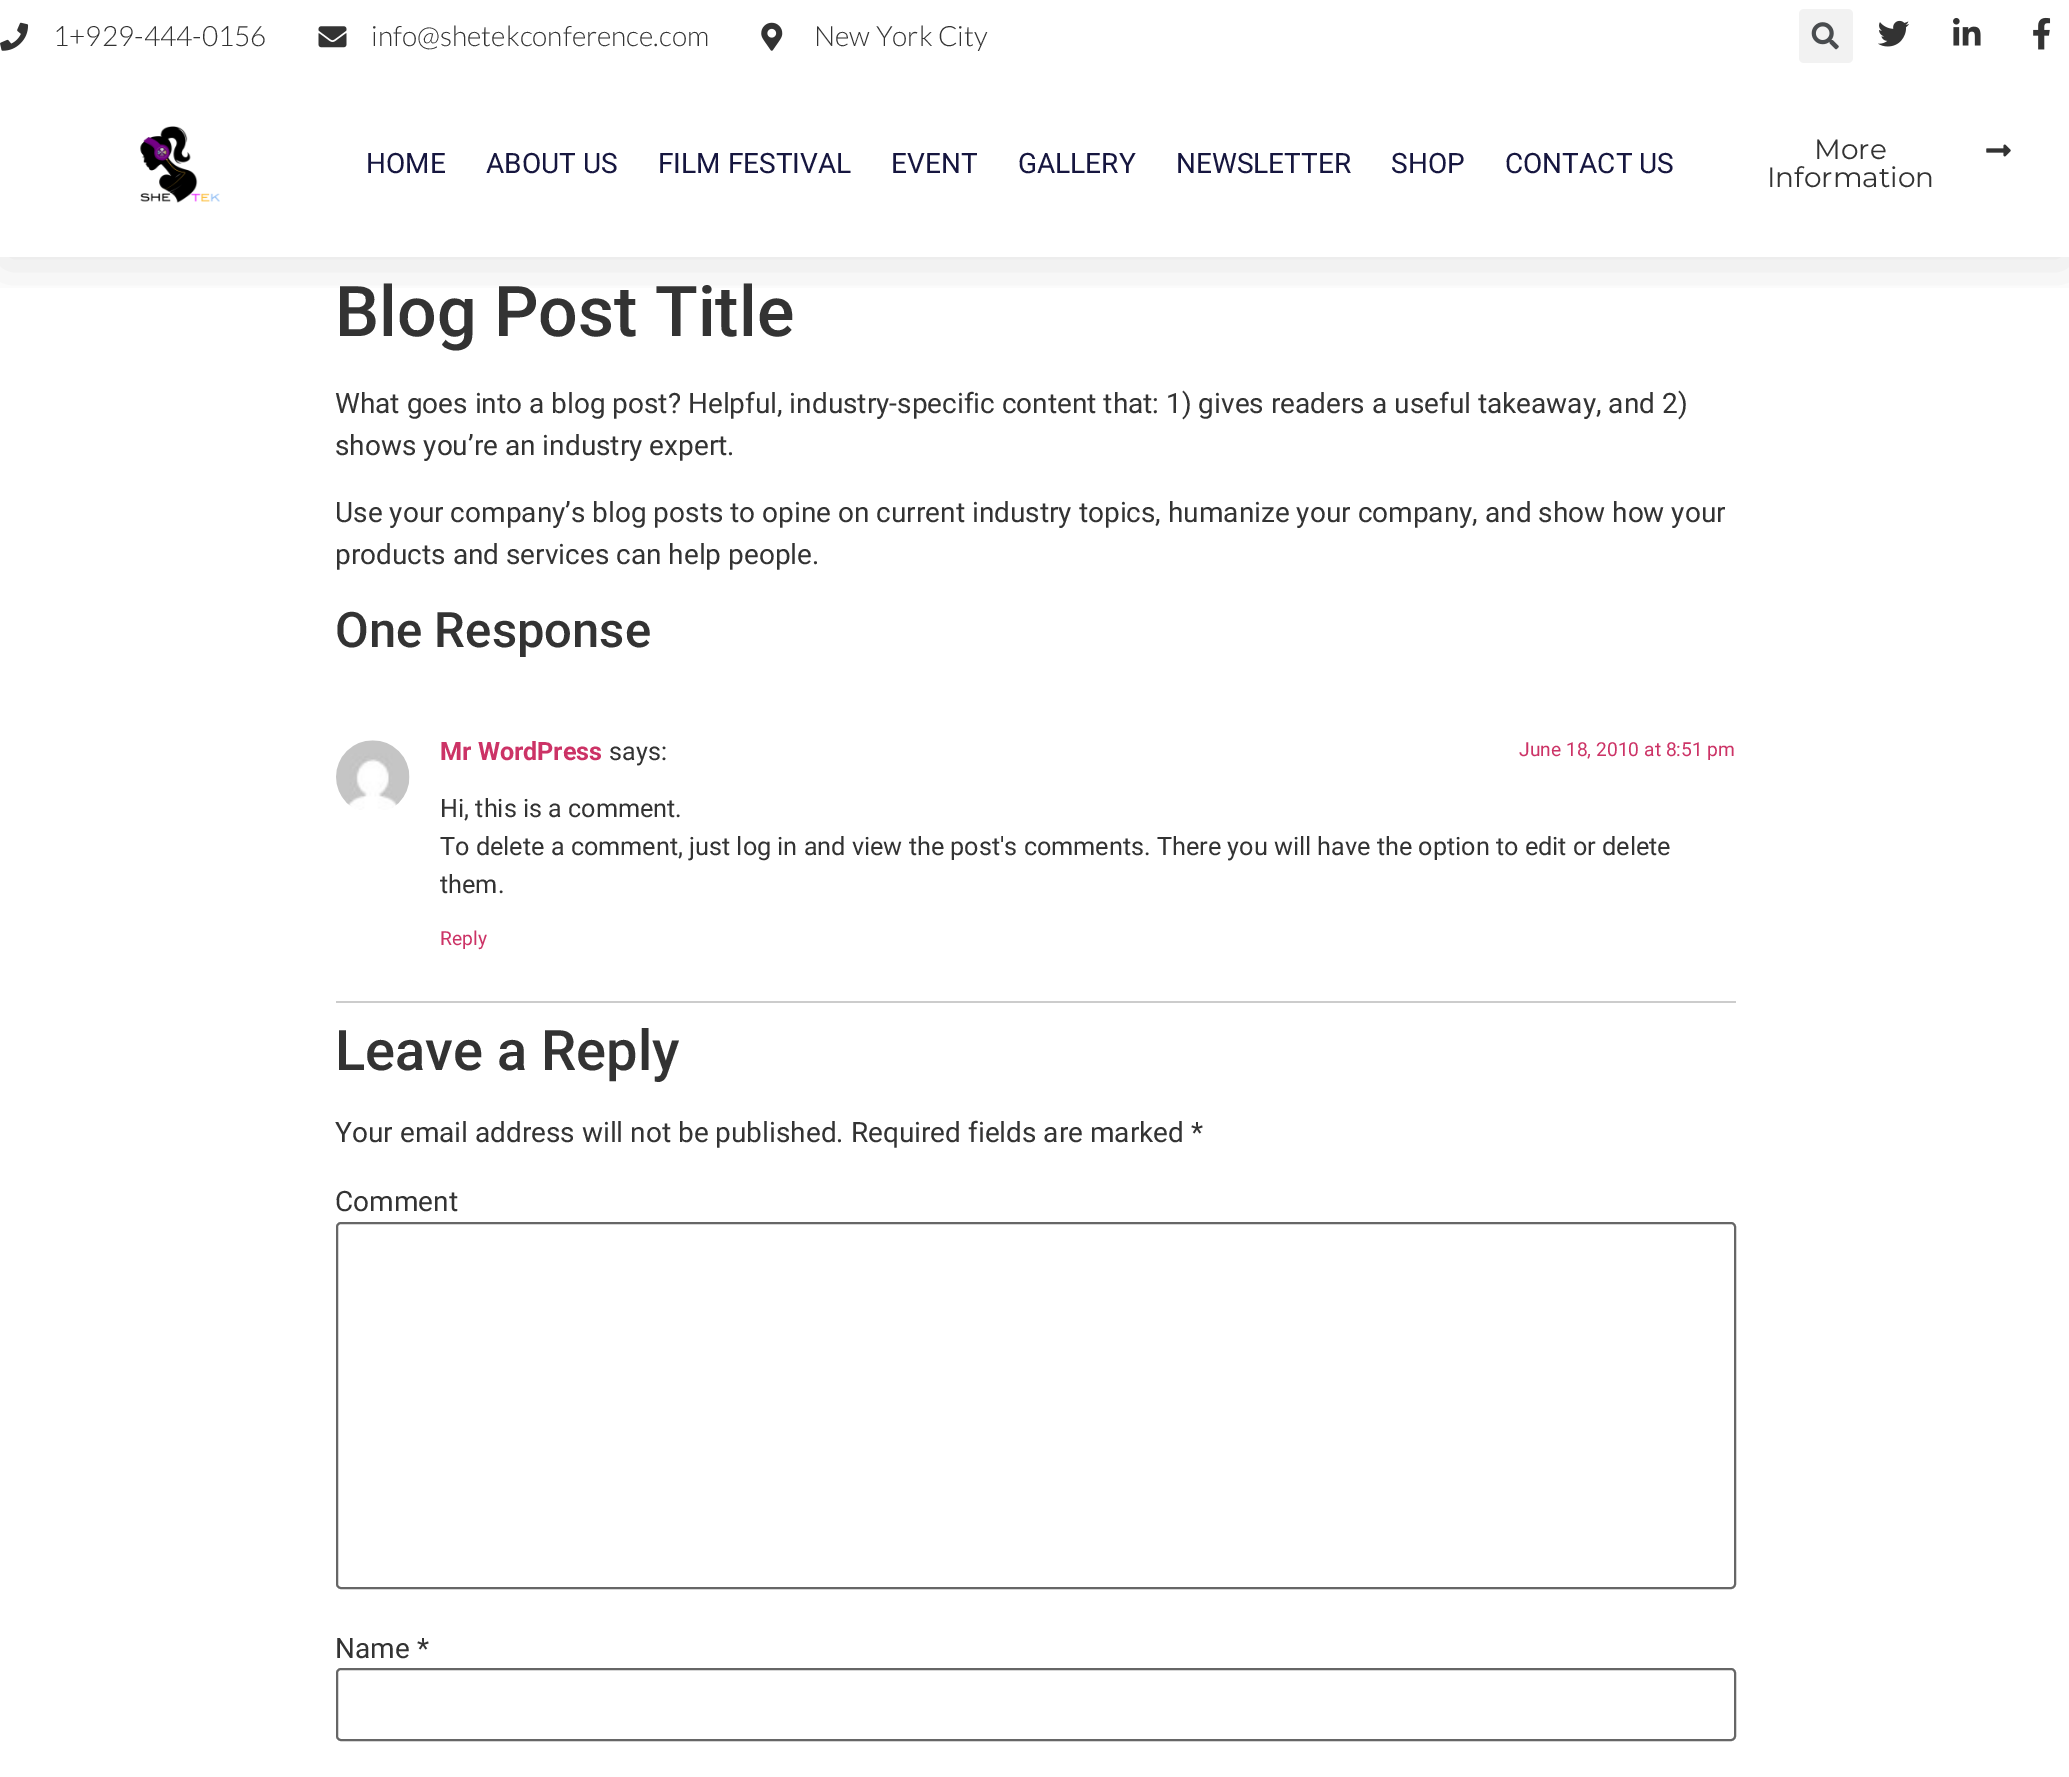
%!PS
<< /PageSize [2069 1777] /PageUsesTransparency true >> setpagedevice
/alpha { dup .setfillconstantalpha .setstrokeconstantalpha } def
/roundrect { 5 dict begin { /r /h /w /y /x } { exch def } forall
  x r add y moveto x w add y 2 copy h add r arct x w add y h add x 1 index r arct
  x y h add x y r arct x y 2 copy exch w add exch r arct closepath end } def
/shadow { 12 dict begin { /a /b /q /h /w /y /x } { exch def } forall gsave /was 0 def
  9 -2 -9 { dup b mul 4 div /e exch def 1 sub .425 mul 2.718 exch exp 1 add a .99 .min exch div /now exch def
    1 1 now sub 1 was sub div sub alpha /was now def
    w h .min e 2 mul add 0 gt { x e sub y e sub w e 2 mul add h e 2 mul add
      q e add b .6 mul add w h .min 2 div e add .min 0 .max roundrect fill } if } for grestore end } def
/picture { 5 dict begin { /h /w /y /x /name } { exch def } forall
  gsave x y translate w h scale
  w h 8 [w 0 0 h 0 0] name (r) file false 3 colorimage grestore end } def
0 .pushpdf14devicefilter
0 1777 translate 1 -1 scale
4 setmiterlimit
1 setgray
0 0 2069 1777 rectfill
gsave
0 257 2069 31 rectclip
0 setgray
0 9 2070 257 0 26 0.1 shadow
grestore
(img1.rgb) 0 22 29 29 picture
/Lato-Light [28 0 0 -28 0 0] selectfont
0.2 setgray
53 46 moveto (1+929-444-0156) show
(img2.rgb) 318 26 29 22 picture
371 46 moveto (info@shetekconference.com) show
(img3.rgb) 761 22 22 29 picture
814 46 moveto (New York City) show
0.949 setgray
1799 9 54 54 5 roundrect fill
(img4.rgb) 1811 22 28 28 picture
(img5.rgb) 1878 20 31 27 picture
(img6.rgb) 1953 17 28 29 picture
(img7.rgb) 2033 17 18 33 picture
(img8.rgb) 140 126 80 77 picture
/Roboto-Regular [28 0 0 -28 0 0] selectfont
0.086 0.086 0.247 setrgbcolor
366 173 moveto (HOME) show
486 173 moveto (ABOUT US) show
658 173 moveto (FILM FESTIVAL) show
891 173 moveto (EVENT) show
1018 173 moveto (GALLERY) show
1176 173 moveto (NEWSLETTER) show
1391 173 moveto (SHOP) show
1505 173 moveto (CONTACT US) show
/Montserrat-Regular [28 0 0 -28 0 0] selectfont
0.2 setgray
1814 159 moveto (More) show
1767 187 moveto (Information) show
(img9.rgb) 1986 144 25 13 picture
/Roboto-Medium [70 0 0 -70 0 0] selectfont
335 336 moveto (Blog Post Title) show
/Roboto-Regular [28 0 0 -28 0 0] selectfont
335 413 moveto (What goes into a blog post? Helpful, industry-specific content that: 1\) gives readers a useful takeaway, and 2\)) show
335 455 moveto (shows you’re an industry expert.) show
335 522 moveto (Use your company’s blog posts to opine on current industry topics, humanize your company, and show how your) show
335 564 moveto (products and services can help people.) show
/Roboto-Medium [49 0 0 -49 0 0] selectfont
335 647 moveto (One Response) show
0.8 setgray
336 1001 1400 2 rectfill
(img10.rgb) 336 740 74 70 picture
/Roboto-Bold [25.2 0 0 -25.2 0 0] selectfont
0.8 0.2 0.4 setrgbcolor
440 760 moveto (Mr WordPress) show
/Roboto-Regular [25.2 0 0 -25.2 0 0] selectfont
0.2 setgray
609 760 moveto (says:) show
/Roboto-Regular [19.25 0 0 -19.25 0 0] selectfont
0.8 0.2 0.4 setrgbcolor
1519 756 moveto (June 18, 2010 at 8:51 pm) show
/Roboto-Regular [25.2 0 0 -25.2 0 0] selectfont
0.2 setgray
440 817 moveto (Hi, this is a comment.) show
440 855 moveto (To delete a comment, just log in and view the post's comments. There you will have the option to edit or delete) show
440 893 moveto (them.) show
/Roboto-Regular [19.25 0 0 -19.25 0 0] selectfont
0.8 0.2 0.4 setrgbcolor
440 945 moveto (Reply) show
/Roboto-Medium [56 0 0 -56 0 0] selectfont
0.2 setgray
335 1070 moveto (Leave a Reply) show
/Roboto-Regular [28 0 0 -28 0 0] selectfont
335 1142 moveto (Your email address will not be published. Required fields are marked *) show
335 1211 moveto (Comment) show
0.4 setgray
2 setlinewidth
337 1223 1398 365 4 roundrect stroke
0.2 setgray
335 1658 moveto (Name *) show
0.4 setgray
337 1669 1398 71 4 roundrect stroke
.poppdf14devicefilter showpage
